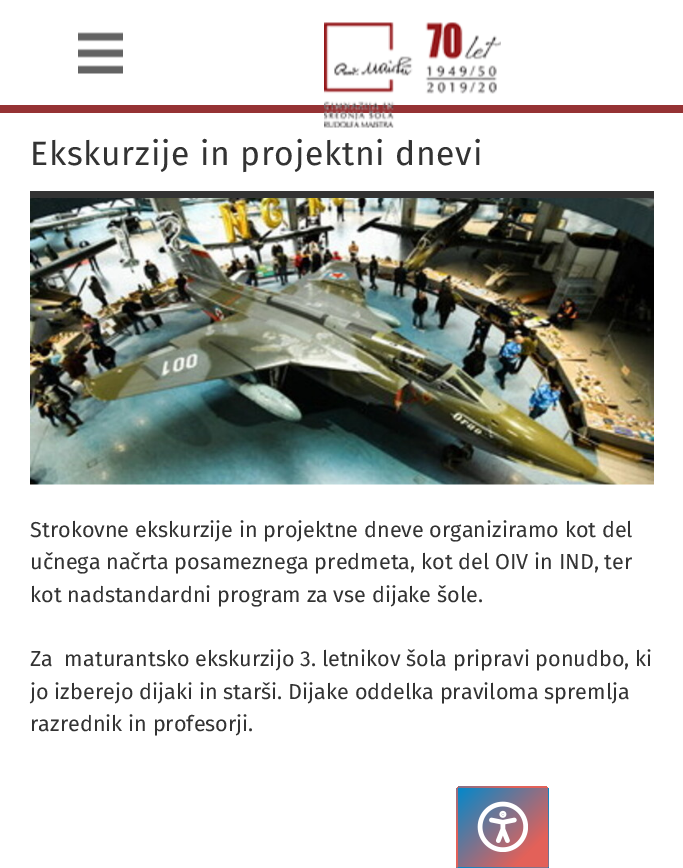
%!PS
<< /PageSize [683 868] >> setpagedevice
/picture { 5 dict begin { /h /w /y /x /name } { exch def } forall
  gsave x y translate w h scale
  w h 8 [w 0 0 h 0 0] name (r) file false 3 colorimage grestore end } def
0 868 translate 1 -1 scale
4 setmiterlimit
1 setgray
0 0 683 868 rectfill
0.584 0.196 0.204 setrgbcolor
0 105 683 8 rectfill
(img1.rgb) 78 32 45 42 picture
(img2.rgb) 324 22 177 106 picture
0.2 setgray
30 191 624 7 rectfill
/FiraSans-Regular [33.6 0 0 -33.6 0 0] selectfont
30 165 moveto 0.75 0 (Ekskurzije in projektni dnevi) ashow
(img3.rgb) 30 198 624 287 picture
/FiraSans-Regular [21.6 0 0 -21.6 0 0] selectfont
30 537 moveto (Strokovne ekskurzije in projektne dneve organiziramo kot del) show
30 569 moveto (učnega načrta posameznega predmeta, kot del OIV in IND, ter) show
30 602 moveto (kot nadstandardni program za vse dijake šole.) show
30 666 moveto (Za  maturantsko ekskurzijo 3. letnikov šola pripravi ponudbo, ki) show
30 699 moveto (jo izberejo dijaki in starši. Dijake oddelka praviloma spremlja) show
30 731 moveto (razrednik in profesorji.) show
gsave
newpath 462 786 moveto 543 786 lineto 546.5 786 549 788.5 549 792 curveto 549 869 lineto 456 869 lineto 456 792 lineto 456 788.5 458.5 786 462 786 curveto closepath clip newpath
gsave newpath 456 787 moveto 458 787 lineto 458 788 lineto 456 788 lineto closepath clip newpath
<< /ShadingType 2 /ColorSpace /DeviceRGB /Coords [370 705 455 790] /Extend [true true] /Function << /FunctionType 3 /Domain [0 1] /Functions [<< /FunctionType 2 /Domain [0 1] /C0 [0 0.533 0.8] /C1 [0.89 0.38 0.349] /N 1 >> << /FunctionType 2 /Domain [0 1] /C0 [0.89 0.38 0.349] /C1 [0.89 0.38 0.349] /N 1 >>] /Bounds [0.8] /Encode [0 1 0 1] >> >> shfill grestore
gsave newpath 458 786 moveto 548 786 lineto 548 788 lineto 458 788 lineto closepath clip newpath
<< /ShadingType 2 /ColorSpace /DeviceRGB /Coords [460 705 545 790] /Extend [true true] /Function << /FunctionType 3 /Domain [0 1] /Functions [<< /FunctionType 2 /Domain [0 1] /C0 [0 0.533 0.8] /C1 [0.89 0.38 0.349] /N 1 >> << /FunctionType 2 /Domain [0 1] /C0 [0.89 0.38 0.349] /C1 [0.89 0.38 0.349] /N 1 >>] /Bounds [0.8] /Encode [0 1 0 1] >> >> shfill grestore
gsave newpath 456 788 moveto 458 788 lineto 458 867 lineto 456 867 lineto closepath clip newpath
<< /ShadingType 2 /ColorSpace /DeviceRGB /Coords [370 785 455 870] /Extend [true true] /Function << /FunctionType 3 /Domain [0 1] /Functions [<< /FunctionType 2 /Domain [0 1] /C0 [0 0.533 0.8] /C1 [0.89 0.38 0.349] /N 1 >> << /FunctionType 2 /Domain [0 1] /C0 [0.89 0.38 0.349] /C1 [0.89 0.38 0.349] /N 1 >>] /Bounds [0.8] /Encode [0 1 0 1] >> >> shfill grestore
grestore
gsave newpath 458 788 moveto 548 788 lineto 548 867 lineto 458 867 lineto closepath clip newpath
<< /ShadingType 2 /ColorSpace /DeviceRGB /Coords [460 785 545 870] /Extend [true true] /Function << /FunctionType 3 /Domain [0 1] /Functions [<< /FunctionType 2 /Domain [0 1] /C0 [0 0.533 0.8] /C1 [0.89 0.38 0.349] /N 1 >> << /FunctionType 2 /Domain [0 1] /C0 [0.89 0.38 0.349] /C1 [0.89 0.38 0.349] /N 1 >>] /Bounds [0.8] /Encode [0 1 0 1] >> >> shfill grestore
gsave
newpath 462 786 moveto 543 786 lineto 546.5 786 549 788.5 549 792 curveto 549 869 lineto 456 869 lineto 456 792 lineto 456 788.5 458.5 786 462 786 curveto closepath clip newpath
gsave newpath 548 788 moveto 549 788 lineto 549 867 lineto 548 867 lineto closepath clip newpath
<< /ShadingType 2 /ColorSpace /DeviceRGB /Coords [550 785 635 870] /Extend [true true] /Function << /FunctionType 3 /Domain [0 1] /Functions [<< /FunctionType 2 /Domain [0 1] /C0 [0 0.533 0.8] /C1 [0.89 0.38 0.349] /N 1 >> << /FunctionType 2 /Domain [0 1] /C0 [0.89 0.38 0.349] /C1 [0.89 0.38 0.349] /N 1 >>] /Bounds [0.8] /Encode [0 1 0 1] >> >> shfill grestore
grestore
gsave newpath 456 867 moveto 458 867 lineto 458 868 lineto 456 868 lineto closepath clip newpath
<< /ShadingType 2 /ColorSpace /DeviceRGB /Coords [370 864 455 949] /Extend [true true] /Function << /FunctionType 3 /Domain [0 1] /Functions [<< /FunctionType 2 /Domain [0 1] /C0 [0 0.533 0.8] /C1 [0.89 0.38 0.349] /N 1 >> << /FunctionType 2 /Domain [0 1] /C0 [0.89 0.38 0.349] /C1 [0.89 0.38 0.349] /N 1 >>] /Bounds [0.8] /Encode [0 1 0 1] >> >> shfill grestore
gsave newpath 458 867 moveto 548 867 lineto 548 868 lineto 458 868 lineto closepath clip newpath
<< /ShadingType 2 /ColorSpace /DeviceRGB /Coords [460 864 545 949] /Extend [true true] /Function << /FunctionType 3 /Domain [0 1] /Functions [<< /FunctionType 2 /Domain [0 1] /C0 [0 0.533 0.8] /C1 [0.89 0.38 0.349] /N 1 >> << /FunctionType 2 /Domain [0 1] /C0 [0.89 0.38 0.349] /C1 [0.89 0.38 0.349] /N 1 >>] /Bounds [0.8] /Encode [0 1 0 1] >> >> shfill grestore
gsave newpath 548 867 moveto 549 867 lineto 549 868 lineto 548 868 lineto closepath clip newpath
<< /ShadingType 2 /ColorSpace /DeviceRGB /Coords [550 864 635 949] /Extend [true true] /Function << /FunctionType 3 /Domain [0 1] /Functions [<< /FunctionType 2 /Domain [0 1] /C0 [0 0.533 0.8] /C1 [0.89 0.38 0.349] /N 1 >> << /FunctionType 2 /Domain [0 1] /C0 [0.89 0.38 0.349] /C1 [0.89 0.38 0.349] /N 1 >>] /Bounds [0.8] /Encode [0 1 0 1] >> >> shfill grestore
(img4.rgb) 477 801 51 51 picture
showpage
